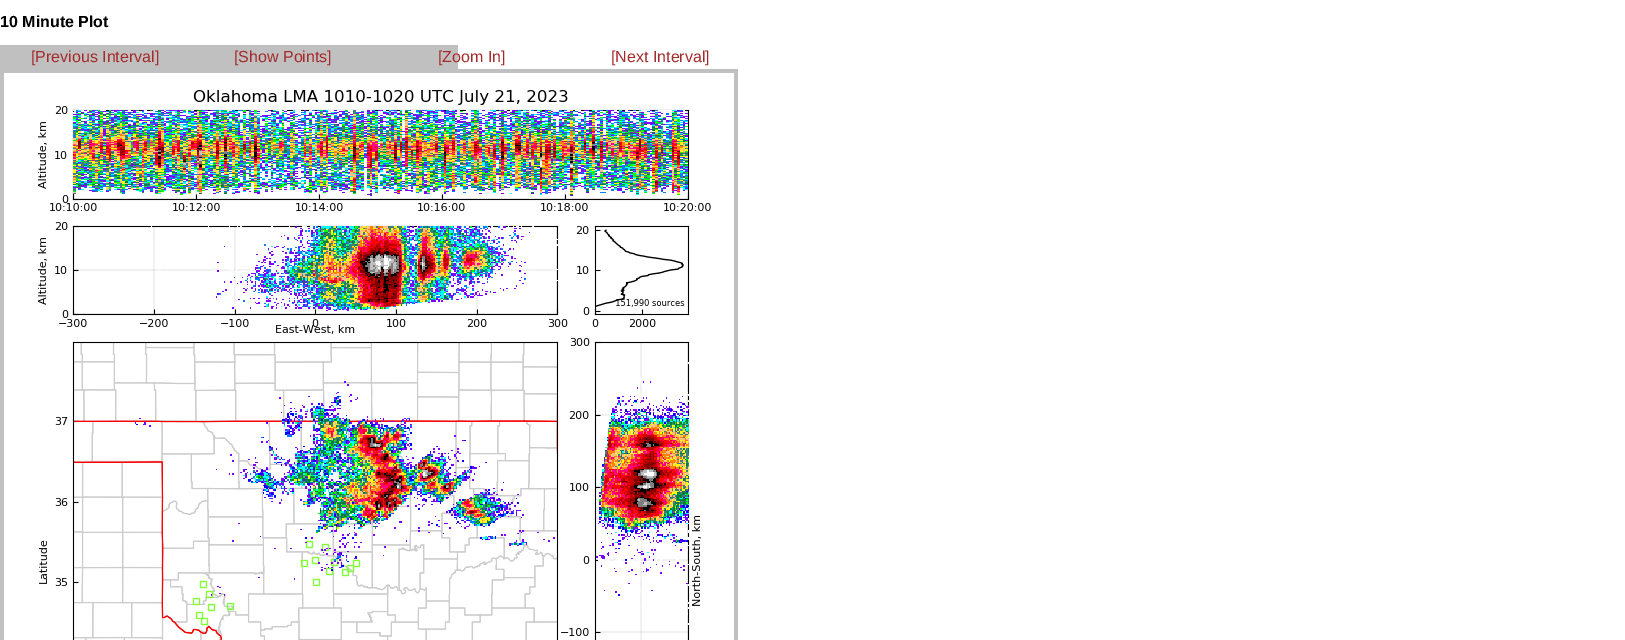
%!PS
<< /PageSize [1625 640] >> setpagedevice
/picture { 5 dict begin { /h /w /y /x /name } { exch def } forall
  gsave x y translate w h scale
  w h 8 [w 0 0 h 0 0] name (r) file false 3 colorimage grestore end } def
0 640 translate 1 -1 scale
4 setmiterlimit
1 setgray
0 0 1625 640 rectfill
/LiberationSans-Bold [16 0 0 -16 0 0] selectfont
0 setgray
0 27 moveto (10 Minute Plot) show
0.753 setgray
0 45 458 24 rectfill
/LiberationSans-Regular [16 0 0 -16 0 0] selectfont
0.647 0.165 0.165 setrgbcolor
31 62 moveto ([Previous Interval]) show
234 62 moveto ([Show Points]) show
438 62 moveto ([Zoom In]) show
611 62 moveto ([Next Interval]) show
(img1.rgb) 0 69 738 571 picture
showpage
